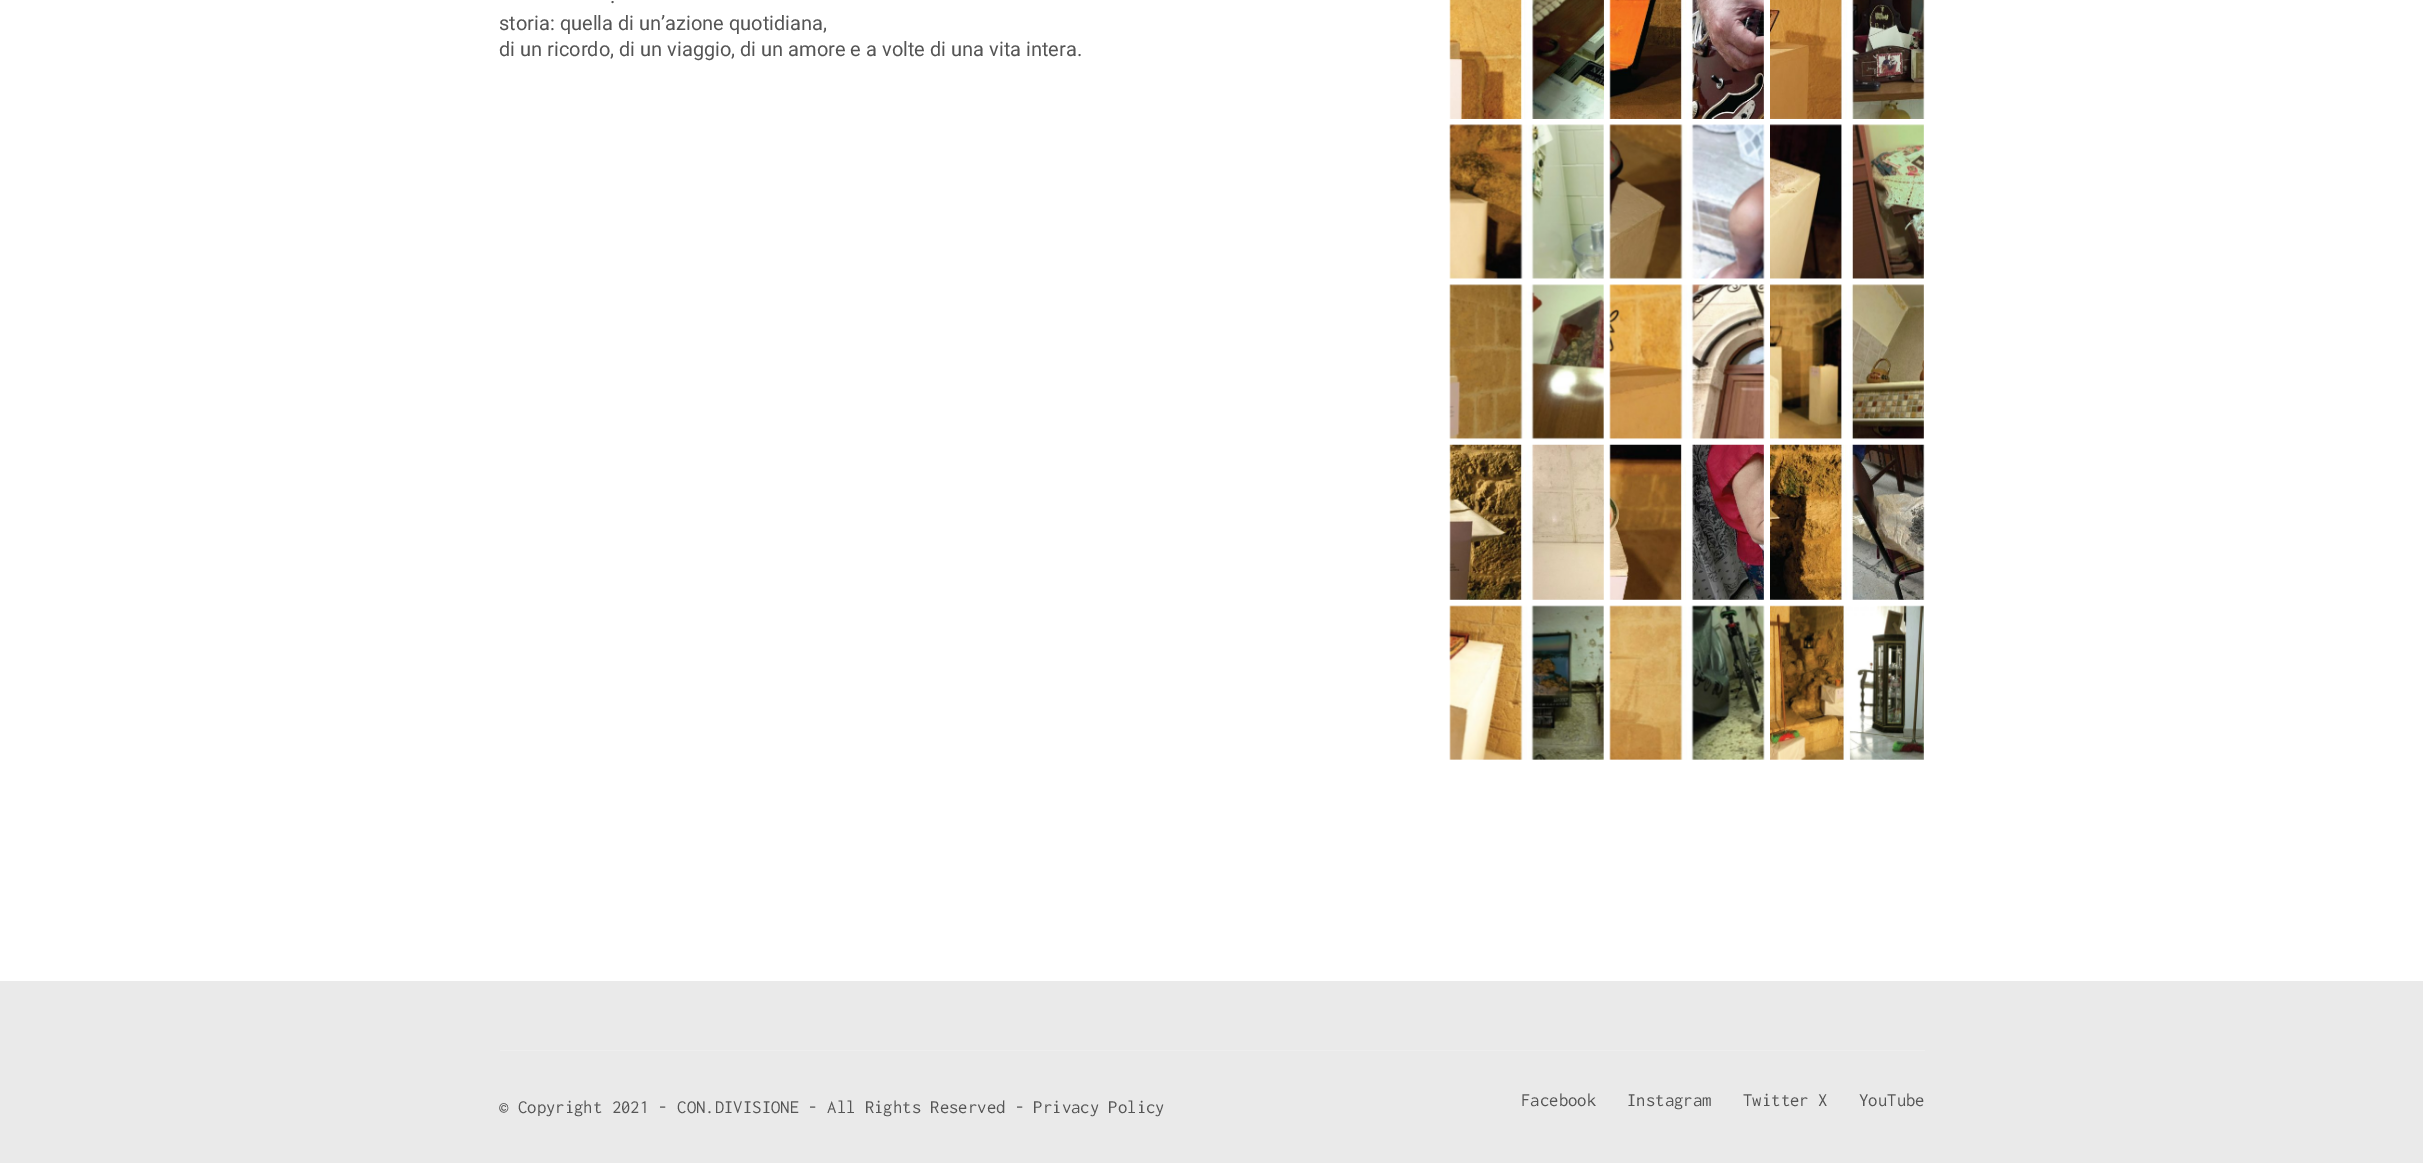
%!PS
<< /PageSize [2423 1163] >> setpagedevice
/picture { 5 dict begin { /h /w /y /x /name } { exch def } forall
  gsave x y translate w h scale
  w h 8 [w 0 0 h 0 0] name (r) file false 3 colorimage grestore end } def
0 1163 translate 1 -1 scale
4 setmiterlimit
1 setgray
0 0 2423 1163 rectfill
/Roboto-Regular [20 0 0 -20 0 0] selectfont
0.333 setgray
610 3 moveto (.) show
499 30 moveto (storia: quella di un’azione quotidiana,) show
499 56 moveto (di un ricordo, di un viaggio, di un amore e a volte di una vita intera.) show
(img1.rgb) 1449 0 155 119 picture
(img2.rgb) 1609 0 155 119 picture
(img3.rgb) 1770 0 155 119 picture
(img4.rgb) 1449 124 155 155 picture
(img5.rgb) 1609 124 156 155 picture
(img6.rgb) 1770 124 154 155 picture
(img7.rgb) 1449 284 155 156 picture
(img8.rgb) 1609 284 156 156 picture
(img9.rgb) 1770 284 154 156 picture
(img10.rgb) 1449 444 155 156 picture
(img11.rgb) 1609 444 155 156 picture
(img12.rgb) 1770 444 155 156 picture
(img13.rgb) 1449 605 155 155 picture
(img14.rgb) 1609 605 156 155 picture
(img15.rgb) 1770 605 154 155 picture
0.918 setgray
0 981 2423 182 rectfill
0.933 setgray
500 1050 1425 1 rectfill
/Inconsolata-Regular [18.75 0 0 -18.75 0 0] selectfont
0.333 setgray
499 1113 moveto (© Copyright 2021 - CON.DIVISIONE - All Rights Reserved - Privacy Policy) show
1521 1106 moveto (Facebook) show
1627 1106 moveto (Instagram) show
1743 1106 moveto (Twitter X) show
1859 1106 moveto (YouTube) show
showpage
